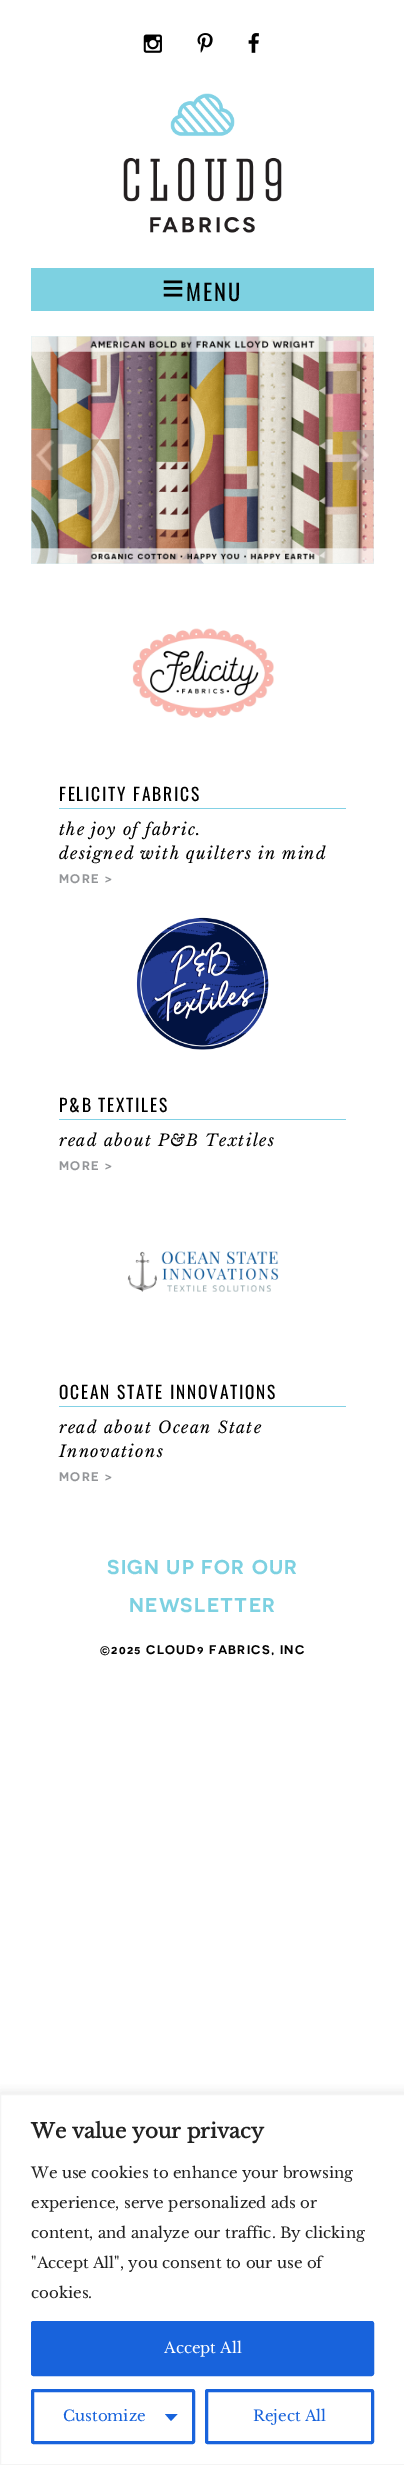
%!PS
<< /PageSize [404 2465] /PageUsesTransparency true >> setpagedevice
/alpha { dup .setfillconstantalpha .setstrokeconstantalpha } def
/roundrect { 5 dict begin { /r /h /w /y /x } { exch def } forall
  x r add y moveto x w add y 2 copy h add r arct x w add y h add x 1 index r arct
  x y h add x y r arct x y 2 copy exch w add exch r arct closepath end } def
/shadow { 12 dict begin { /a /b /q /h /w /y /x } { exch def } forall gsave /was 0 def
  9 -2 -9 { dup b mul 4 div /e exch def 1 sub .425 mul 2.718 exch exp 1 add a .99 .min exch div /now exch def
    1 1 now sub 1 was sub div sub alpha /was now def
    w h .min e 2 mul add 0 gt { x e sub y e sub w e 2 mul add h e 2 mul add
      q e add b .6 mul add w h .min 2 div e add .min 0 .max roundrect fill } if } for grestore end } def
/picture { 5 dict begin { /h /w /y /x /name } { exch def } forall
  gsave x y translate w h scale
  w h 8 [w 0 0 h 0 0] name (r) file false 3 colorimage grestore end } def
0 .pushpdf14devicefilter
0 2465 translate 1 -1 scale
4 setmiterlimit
1 setgray
0 0 404 2465 rectfill
(img1.rgb) 143 34 19 19 picture
(img2.rgb) 197 33 16 20 picture
(img3.rgb) 248 33 11 20 picture
(img4.rgb) 123 93 159 140 picture
0.49 0.82 0.882 setrgbcolor
31 268 343 43 rectfill
/LiberationSans-Regular [38 0 0 -38 0 0] selectfont
0 setgray
162 301 moveto 2 0 (≡) ashow
/Oswald-Regular [22.5 0 0 -22.5 0 0] selectfont
186 301 moveto 2 0 (MENU) ashow
0.863 0.945 0.965 setrgbcolor
31 336 343 228 rectfill
(img5.rgb) 31 336 343 228 picture
(img6.rgb) 31 430 32 50 picture
(img7.rgb) 342 430 32 50 picture
(img8.rgb) 132 628 142 90 picture
0.514 0.82 0.898 setrgbcolor
59 808 287 1 rectfill
/Oswald-Regular [17.5 0 0 -17.5 0 0] selectfont
0 setgray
59 801 moveto 1.75 0 (FELICITY FABRICS) ashow
/LibreBaskerville-Italic [16.25 0 0 -16.25 0 0] selectfont
59 835 moveto 1.3 0 (the joy of fabric.) ashow
59 859 moveto 1.3 0 (designed with quilters in mind) ashow
/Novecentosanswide-SemiBold [12.5 0 0 -12.5 0 0] selectfont
0.576 0.584 0.596 setrgbcolor
59 883 moveto 1.25 0 (MORE >) ashow
(img9.rgb) 136 917 133 133 picture
0.514 0.82 0.898 setrgbcolor
59 1119 287 1 rectfill
/Oswald-Regular [17.5 0 0 -17.5 0 0] selectfont
0 setgray
59 1112 moveto 1.75 0 (P&B TEXTILES) ashow
/LibreBaskerville-Italic [16.25 0 0 -16.25 0 0] selectfont
59 1146 moveto 1.3 0 (read about P&B Textiles) ashow
/Novecentosanswide-SemiBold [12.5 0 0 -12.5 0 0] selectfont
0.576 0.584 0.596 setrgbcolor
59 1170 moveto 1.25 0 (MORE >) ashow
(img10.rgb) 127 1251 152 41 picture
0.514 0.82 0.898 setrgbcolor
59 1406 287 1 rectfill
/Oswald-Regular [17.5 0 0 -17.5 0 0] selectfont
0 setgray
59 1399 moveto 1.75 0 (OCEAN STATE INNOVATIONS) ashow
/LibreBaskerville-Italic [16.25 0 0 -16.25 0 0] selectfont
59 1433 moveto 1.3 0 (read about Ocean State) ashow
59 1457 moveto 1.3 0 (Innovations) ashow
/Novecentosanswide-SemiBold [12.5 0 0 -12.5 0 0] selectfont
0.576 0.584 0.596 setrgbcolor
59 1481 moveto 1.25 0 (MORE >) ashow
/Novecentosanswide-SemiBold [20 0 0 -20 0 0] selectfont
0.49 0.82 0.882 setrgbcolor
107 1574 moveto 1.25 0 (SIGN UP FOR OUR) ashow
129 1612 moveto 1.25 0 (NEWSLETTER) ashow
/Novecentosanswide-SemiBold [12.5 0 0 -12.5 0 0] selectfont
0 setgray
100 1654 moveto 1.25 0 (©2025 CLOUD9 FABRICS, INC) ashow
gsave
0 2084 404 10 rectclip
0.675 0.671 0.671 setrgbcolor
0 2093 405 371 0 6 0.3 shadow
grestore
0.957 setgray
0.5 2094.5 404 370 rectstroke
/LibreBaskerville-Bold [20 0 0 -20 0 0] selectfont
0.129 setgray
31 2138 moveto (We value your privacy) show
/LibreBaskerville-Regular [15 0 0 -15 0 0] selectfont
31 2178 moveto (We use cookies to enhance your browsing) show
31 2208 moveto (experience, serve personalized ads or) show
31 2238 moveto (content, and analyze our traffic. By clicking) show
31 2268 moveto ("Accept All", you consent to our use of) show
31 2298 moveto (cookies.) show
0.094 0.388 0.863 setrgbcolor
32.5 2322.5 340 52 1 roundrect gsave fill grestore
3 setlinewidth
stroke
1 setgray
164 2353 moveto (Accept All) show
0.094 0.388 0.863 setrgbcolor
32.5 2390.5 161 52 1 roundrect stroke
63 2421 moveto (Customize) show
newpath 165 2414 moveto 177.5 2414 lineto 171 2421 lineto closepath fill
206.5 2390.5 166 52 1 roundrect stroke
253 2421 moveto (Reject All) show
.poppdf14devicefilter showpage
